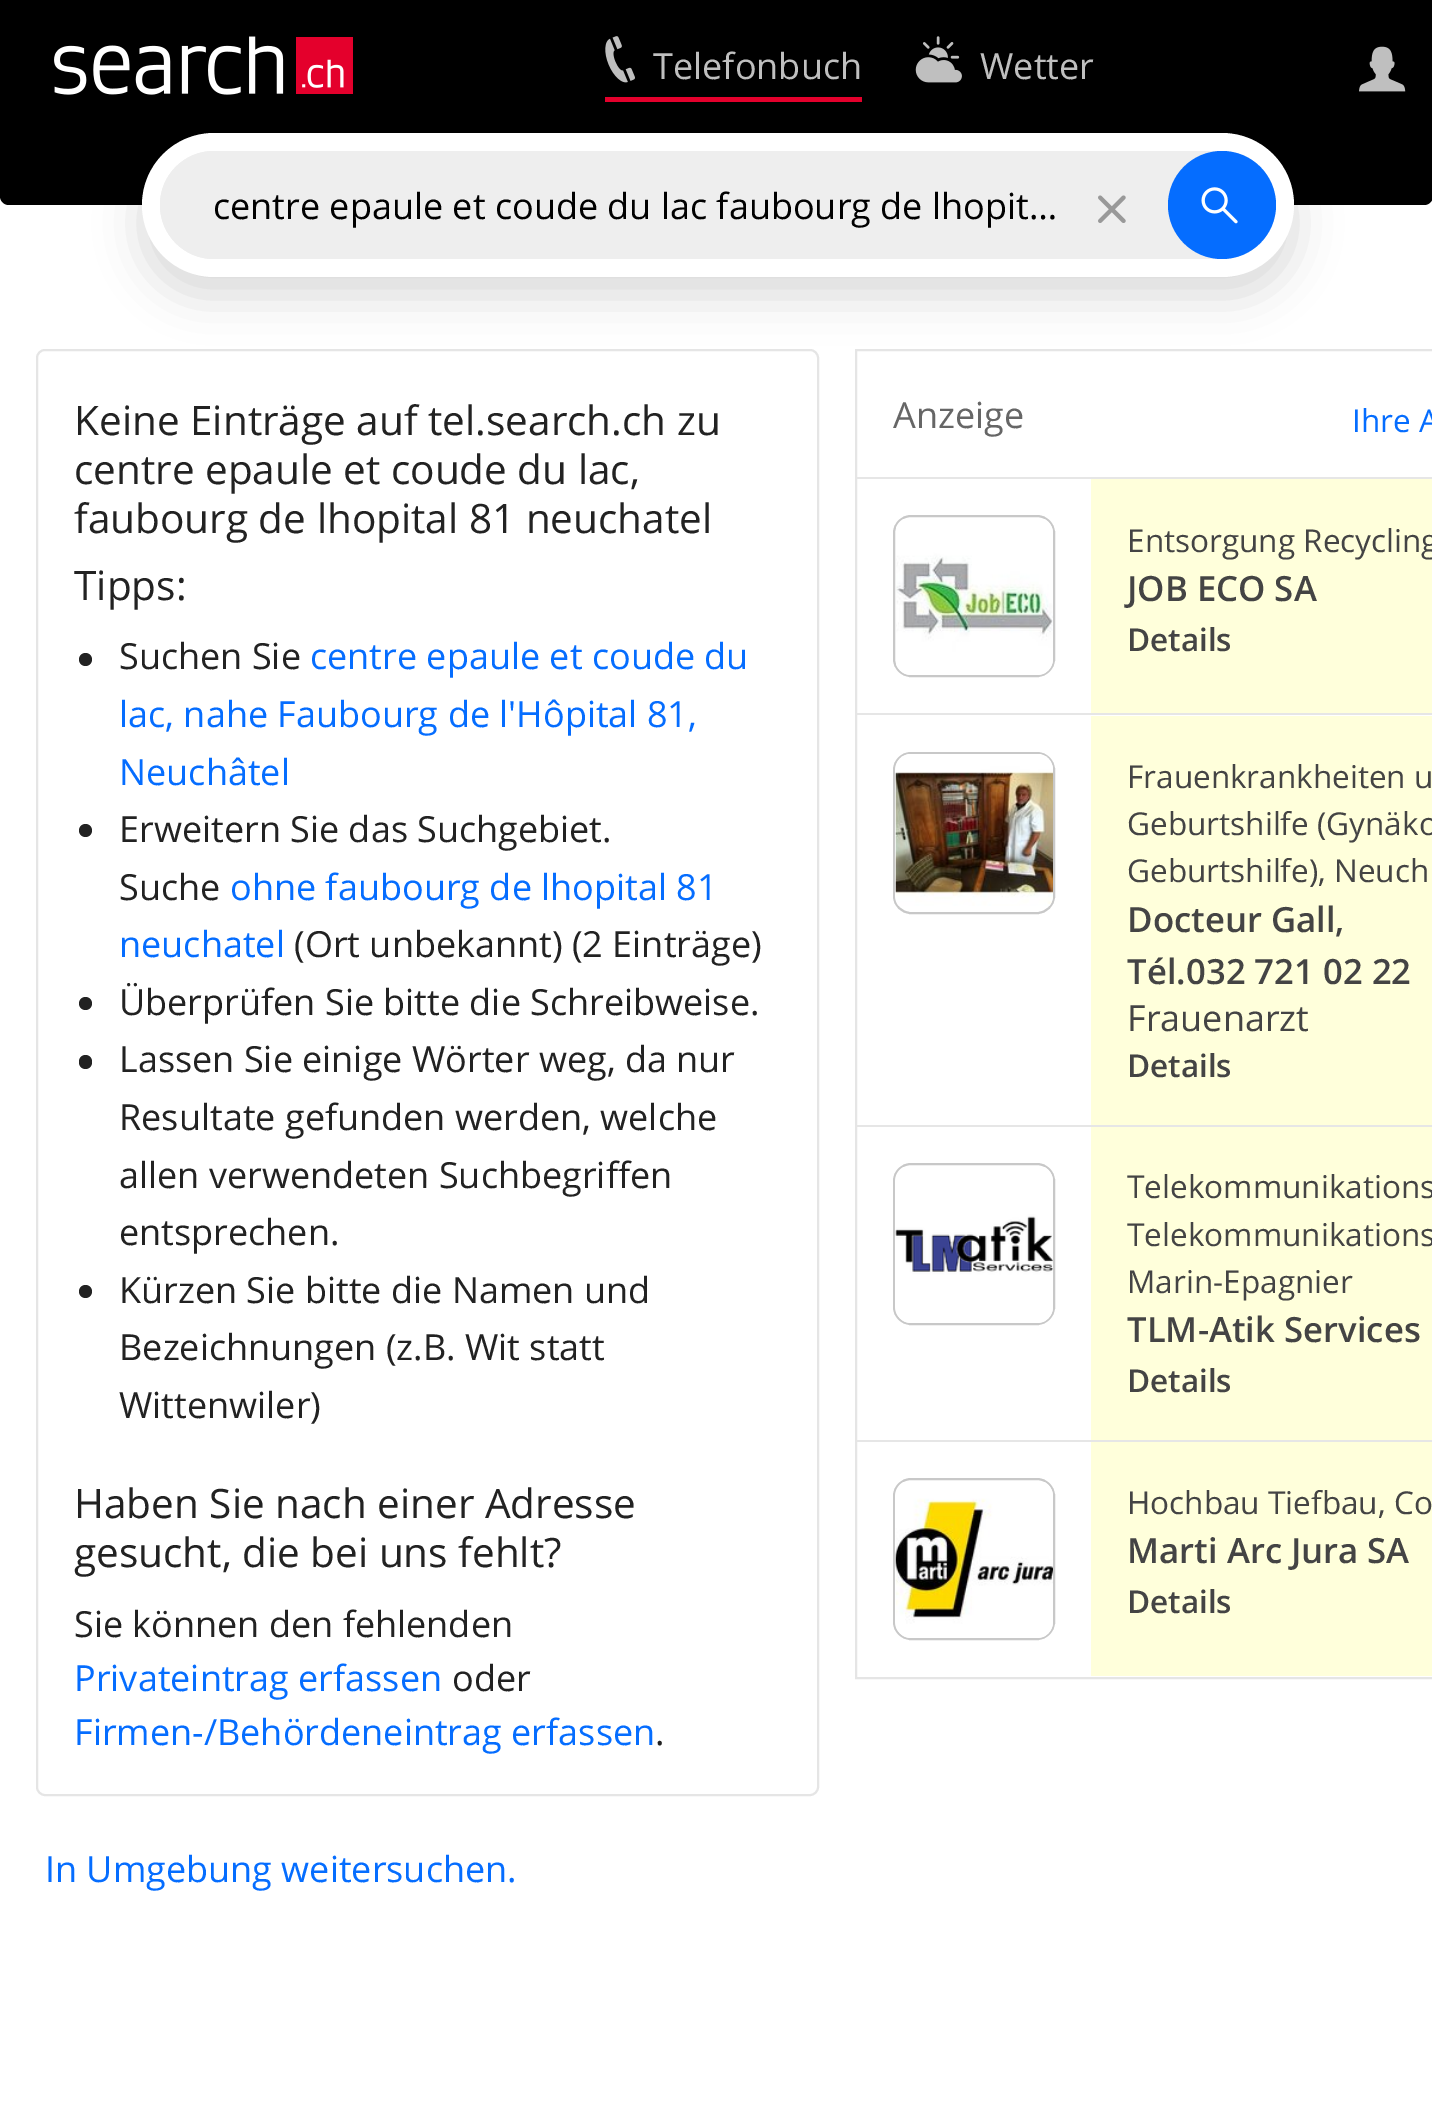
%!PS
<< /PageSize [1432 2126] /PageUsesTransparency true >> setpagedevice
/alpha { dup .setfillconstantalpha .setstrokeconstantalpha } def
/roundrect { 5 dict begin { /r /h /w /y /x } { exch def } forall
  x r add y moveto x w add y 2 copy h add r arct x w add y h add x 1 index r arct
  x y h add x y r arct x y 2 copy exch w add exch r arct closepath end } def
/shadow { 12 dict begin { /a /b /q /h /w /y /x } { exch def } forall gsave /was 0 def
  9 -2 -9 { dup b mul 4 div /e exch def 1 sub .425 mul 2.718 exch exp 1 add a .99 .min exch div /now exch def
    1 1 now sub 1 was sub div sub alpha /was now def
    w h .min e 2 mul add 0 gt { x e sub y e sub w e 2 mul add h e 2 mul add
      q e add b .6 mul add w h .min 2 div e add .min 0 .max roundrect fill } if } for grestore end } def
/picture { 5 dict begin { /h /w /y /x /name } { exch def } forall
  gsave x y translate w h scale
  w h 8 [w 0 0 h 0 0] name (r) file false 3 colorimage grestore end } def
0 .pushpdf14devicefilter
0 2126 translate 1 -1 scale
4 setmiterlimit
1 setgray
0 0 1432 2126 rectfill
0 setgray
0 0 1432 133 rectfill
(img1.rgb) 54 36 299 59 picture
0.894 0 0.173 setrgbcolor
605 97 257 5 rectfill
(img2.rgb) 605 36 30 47 picture
/OpenSans-Regular [36 0 0 -36 0 0] selectfont
0.749 setgray
653 79 moveto (Telefonbuch) show
(img3.rgb) 915 36 47 47 picture
980 79 moveto (Wetter) show
(img4.rgb) 1359 46 47 46 picture
0 setgray
newpath 0 133 moveto 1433 133 lineto 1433 196 lineto 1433 201 1429 205 1424 205 curveto 9 205 lineto 4 205 0 201 0 196 curveto closepath fill
0.898 setgray
2 setlinewidth
37 350 781 1445 8 roundrect stroke
856 350 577 1328 rectstroke
0 setgray
142 151 1152 144 72 22.5 0.15 shadow
1 setgray
142 133 1152 144 72 roundrect fill
0.933 setgray
160 151 1116 108 54 roundrect fill
160 151 900 108 54 roundrect fill
0 setgray
213 219 moveto (centre epaule et coude du lac faubourg de lhopit…) show
(img5.rgb) 1098 195 28 28 picture
0.02 0.427 1 setrgbcolor
newpath 1222 205 54 0 360 arc closepath fill
(img6.rgb) 1201 187 37 37 picture
/OpenSans-Regular [40.5 0 0 -40.5 0 0] selectfont
0.133 setgray
74 435 moveto (Keine Einträge auf tel.search.ch zu) show
74 484 moveto (centre epaule et coude du lac,) show
74 533 moveto (faubourg de lhopital 81 neuchatel) show
74 600 moveto (Tipps:) show
newpath 85.5 659.5 6.5 0 360 arc closepath fill
/OpenSans-Regular [36 0 0 -36 0 0] selectfont
119 669 moveto (Suchen Sie) show
0.02 0.427 1 setrgbcolor
310 669 moveto (centre epaule et coude du) show
119 727 moveto (lac, nahe Faubourg de l'Hôpital 81,) show
119 785 moveto (Neuchâtel) show
0.133 setgray
newpath 85.5 830.5 6.5 0 360 arc closepath fill
119 842 moveto (Erweitern Sie das Suchgebiet.) show
119 900 moveto (Suche) show
0.02 0.427 1 setrgbcolor
230 900 moveto (ohne faubourg de lhopital 81) show
119 957 moveto (neuchatel) show
0.133 setgray
294 957 moveto (\(Ort unbekannt\) \(2 Einträge\)) show
newpath 85.5 1003.5 6.5 0 360 arc closepath fill
119 1015 moveto (Überprüfen Sie bitte die Schreibweise.) show
79 1055 13 14 6.5 roundrect fill
119 1072 moveto (Lassen Sie einige Wörter weg, da nur) show
119 1130 moveto (Resultate gefunden werden, welche) show
119 1188 moveto (allen verwendeten Suchbegriffen) show
119 1245 moveto (entsprechen.) show
newpath 85.5 1291.5 6.5 0 360 arc closepath fill
119 1303 moveto (Kürzen Sie bitte die Namen und) show
119 1360 moveto (Bezeichnungen \(z.B. Wit statt) show
119 1418 moveto (Wittenwiler\)) show
/OpenSans-Regular [40.5 0 0 -40.5 0 0] selectfont
74 1518 moveto (Haben Sie nach einer Adresse) show
74 1567 moveto (gesucht, die bei uns fehlt?) show
/OpenSans-Regular [36 0 0 -36 0 0] selectfont
74 1637 moveto (Sie können den fehlenden) show
0.02 0.427 1 setrgbcolor
74 1691 moveto (Privateintrag erfassen) show
0.133 setgray
452 1691 moveto (oder) show
0.02 0.427 1 setrgbcolor
74 1745 moveto (Firmen-/Behördeneintrag erfassen) show
0.133 setgray
655 1745 moveto (.) show
0.02 0.427 1 setrgbcolor
45 1882 moveto (In Umgebung weitersuchen.) show
0.4 setgray
893 428 moveto (Anzeige) show
/OpenSans-Regular [31.5 0 0 -31.5 0 0] selectfont
0.02 0.427 1 setrgbcolor
1352 432 moveto (Ihre A) show
0.902 setgray
857 477 575 2 rectfill
0.784 setgray
894 516 160 160 17 roundrect stroke
(img7.rgb) 896 519 157 156 picture
1 1 0.859 setrgbcolor
1091 479 341 234 rectfill
0.267 setgray
1127 552 moveto (Entsorgung Recycling) show
/OpenSans-SemiBold [34.75 0 0 -34.75 0 0] selectfont
1127 601 moveto (JOB ECO SA) show
/OpenSans-SemiBold [31.5 0 0 -31.5 0 0] selectfont
1127 651 moveto (Details) show
0.902 setgray
857 713 575 2 rectfill
0.784 setgray
894 753 160 160 17 roundrect stroke
(img8.rgb) 895 754 158 152 picture
1 1 0.859 setrgbcolor
1091 716 341 409 rectfill
/OpenSans-Regular [31.5 0 0 -31.5 0 0] selectfont
0.267 setgray
1127 788 moveto (Frauenkrankheiten u) show
1127 835 moveto (Geburtshilfe \(Gynäko) show
1127 882 moveto (Geburtshilfe\), Neuch) show
/OpenSans-SemiBold [34.75 0 0 -34.75 0 0] selectfont
1127 932 moveto (Docteur Gall,) show
1127 984 moveto (Tél.032 721 02 22) show
/OpenSans-Regular [36 0 0 -36 0 0] selectfont
1127 1031 moveto (Frauenarzt) show
/OpenSans-SemiBold [31.5 0 0 -31.5 0 0] selectfont
1127 1077 moveto (Details) show
0.902 setgray
857 1125 575 2 rectfill
0.784 setgray
894 1164 160 160 17 roundrect stroke
(img9.rgb) 895 1167 158 156 picture
1 1 0.859 setrgbcolor
1091 1127 341 313 rectfill
/OpenSans-Regular [31.5 0 0 -31.5 0 0] selectfont
0.267 setgray
1127 1198 moveto (Telekommunikations) show
1127 1246 moveto (Telekommunikations) show
1127 1293 moveto (Marin-Epagnier) show
/OpenSans-SemiBold [34.75 0 0 -34.75 0 0] selectfont
1127 1342 moveto (TLM-Atik Services) show
/OpenSans-SemiBold [31.5 0 0 -31.5 0 0] selectfont
1127 1392 moveto (Details) show
0.902 setgray
857 1440 575 2 rectfill
0.784 setgray
894 1479 160 160 17 roundrect stroke
(img10.rgb) 895 1482 158 156 picture
1 1 0.859 setrgbcolor
1091 1442 341 234 rectfill
/OpenSans-Regular [31.5 0 0 -31.5 0 0] selectfont
0.267 setgray
1127 1514 moveto (Hochbau Tiefbau, Co) show
/OpenSans-SemiBold [34.75 0 0 -34.75 0 0] selectfont
1127 1563 moveto (Marti Arc Jura SA) show
/OpenSans-SemiBold [31.5 0 0 -31.5 0 0] selectfont
1127 1613 moveto (Details) show
.poppdf14devicefilter showpage
